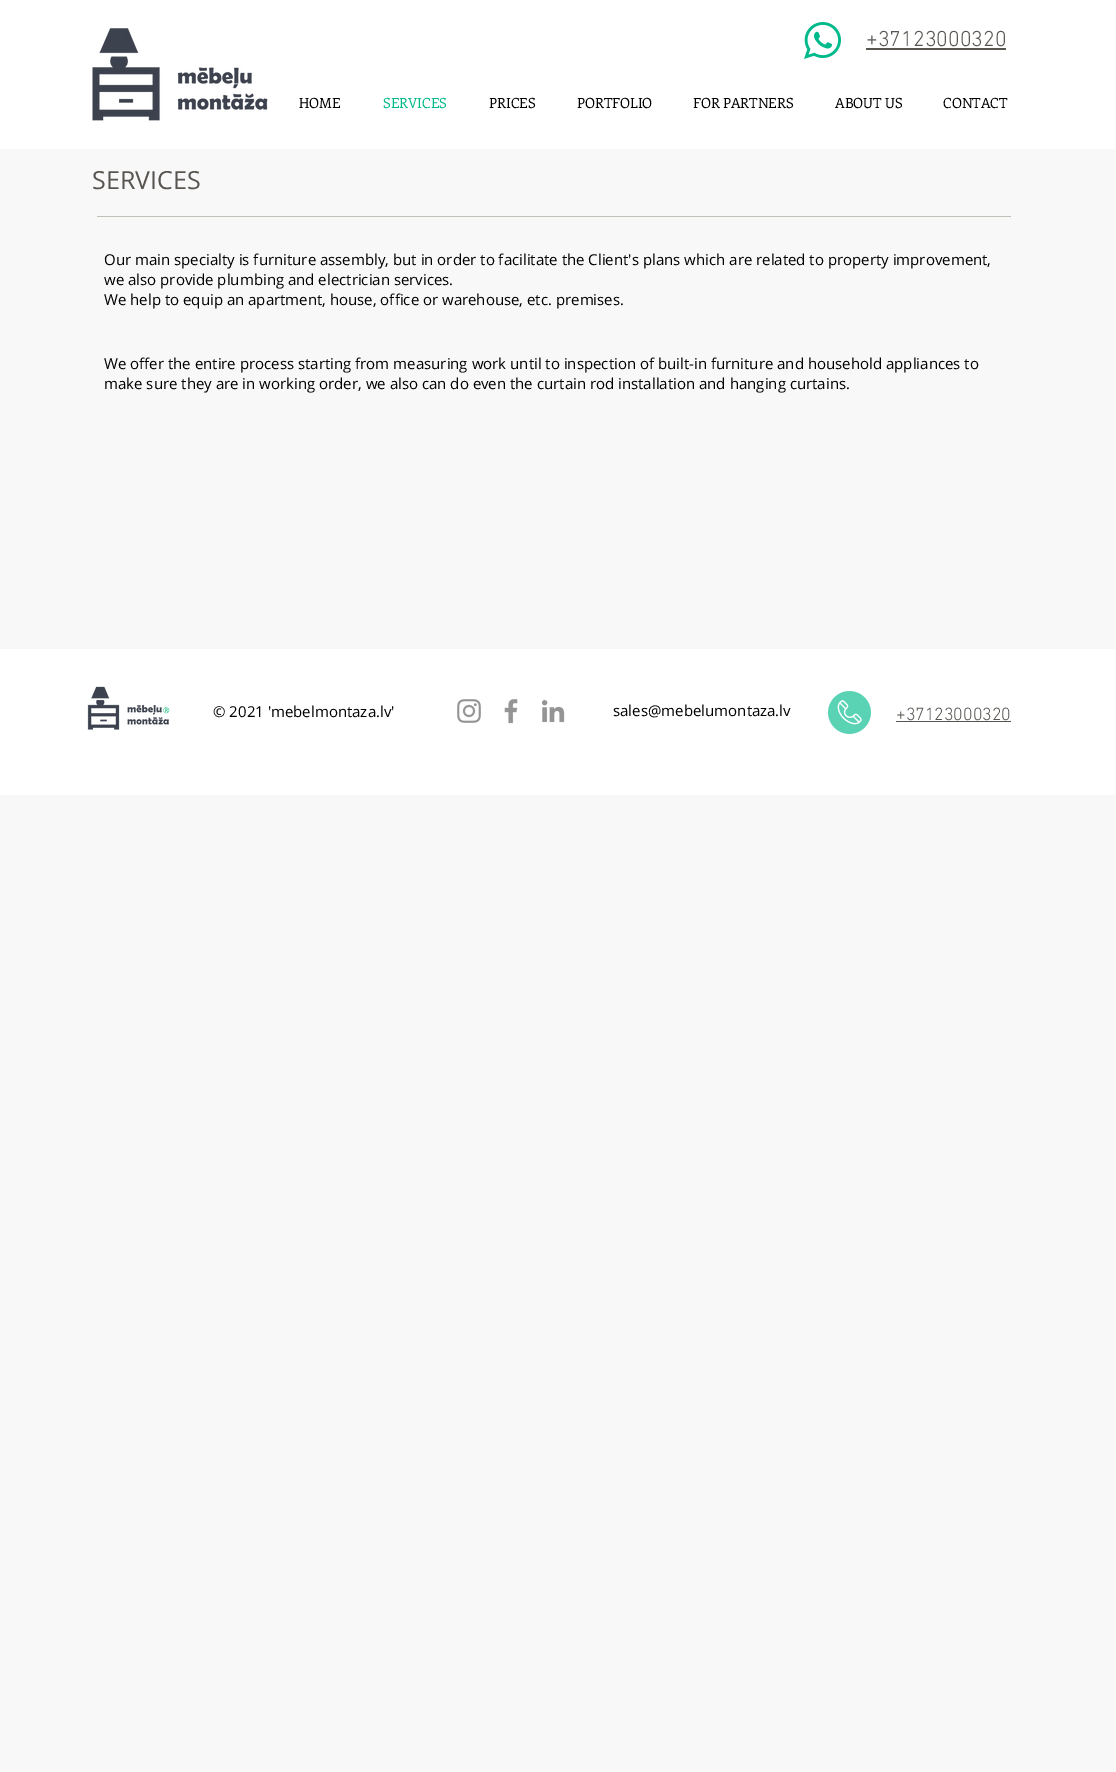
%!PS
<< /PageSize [1116 1772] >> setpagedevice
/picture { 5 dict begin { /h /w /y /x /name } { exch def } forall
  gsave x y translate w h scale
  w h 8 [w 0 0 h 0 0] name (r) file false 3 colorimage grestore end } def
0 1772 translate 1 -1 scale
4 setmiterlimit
0.973 setgray
0 0 1116 1772 rectfill
1 setgray
0 0 1116 149 rectfill
(img1.rgb) 92 28 176 93 picture
(img2.rgb) 804 22 37 37 picture
/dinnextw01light-Light [22 0 0 -22 0 0] selectfont
0.345 0.333 0.318 setrgbcolor
866 46 moveto (+37123000320) show
866 48 140 2 rectfill
/Enriqueta-Regular [14 0 0 -14 0 0] selectfont
0 setgray
299 108 moveto (HOME) show
0.004 0.729 0.549 setrgbcolor
383 108 moveto (SERVICES) show
0 setgray
489 108 moveto (PRICES) show
577 108 moveto (PORTFOLIO) show
693 108 moveto (FOR PARTNERS) show
835 108 moveto (ABOUT US) show
943 108 moveto (CONTACT) show
/OpenSans-Regular [25 0 0 -25 0 0] selectfont
0.345 0.333 0.318 setrgbcolor
92 189 moveto (SERVICES) show
0.761 0.749 0.725 setrgbcolor
97 216 914 1 rectfill
/OpenSans-Regular [15 0 0 -15 0 0] selectfont
0 setgray
104 265 moveto (Our main specialty is furniture assembly, but in order to facilitate the Client's plans which are related to property improvement,) show
104 285 moveto (we also provide plumbing and electrician services.) show
104 305 moveto (We help to equip an apartment, house, office or warehouse, etc. premises.) show
104 369 moveto (We offer the entire process starting from measuring work until to inspection of built-in furniture and household appliances to) show
104 389 moveto (make sure they are in working order, we also can do even the curtain rod installation and hanging curtains.) show
1 setgray
0 649 1116 146 rectfill
(img3.rgb) 87 686 82 44 picture
0 setgray
213 717 moveto (© 2021 'mebelmontaza.lv') show
(img4.rgb) 457 699 24 24 picture
(img5.rgb) 504 699 14 25 picture
(img6.rgb) 541 699 24 24 picture
613 716 moveto (sales@mebelumontaza.lv) show
(img7.rgb) 828 691 43 43 picture
/OpenSans-Regular [8 0 0 -8 0 0] selectfont
0.004 0.729 0.463 setrgbcolor
163 713 moveto (®) show
/dinnextw01light-Light [18 0 0 -18 0 0] selectfont
0.345 0.333 0.318 setrgbcolor
896 720 moveto (+37123000320) show
896 721 115 1 rectfill
showpage
